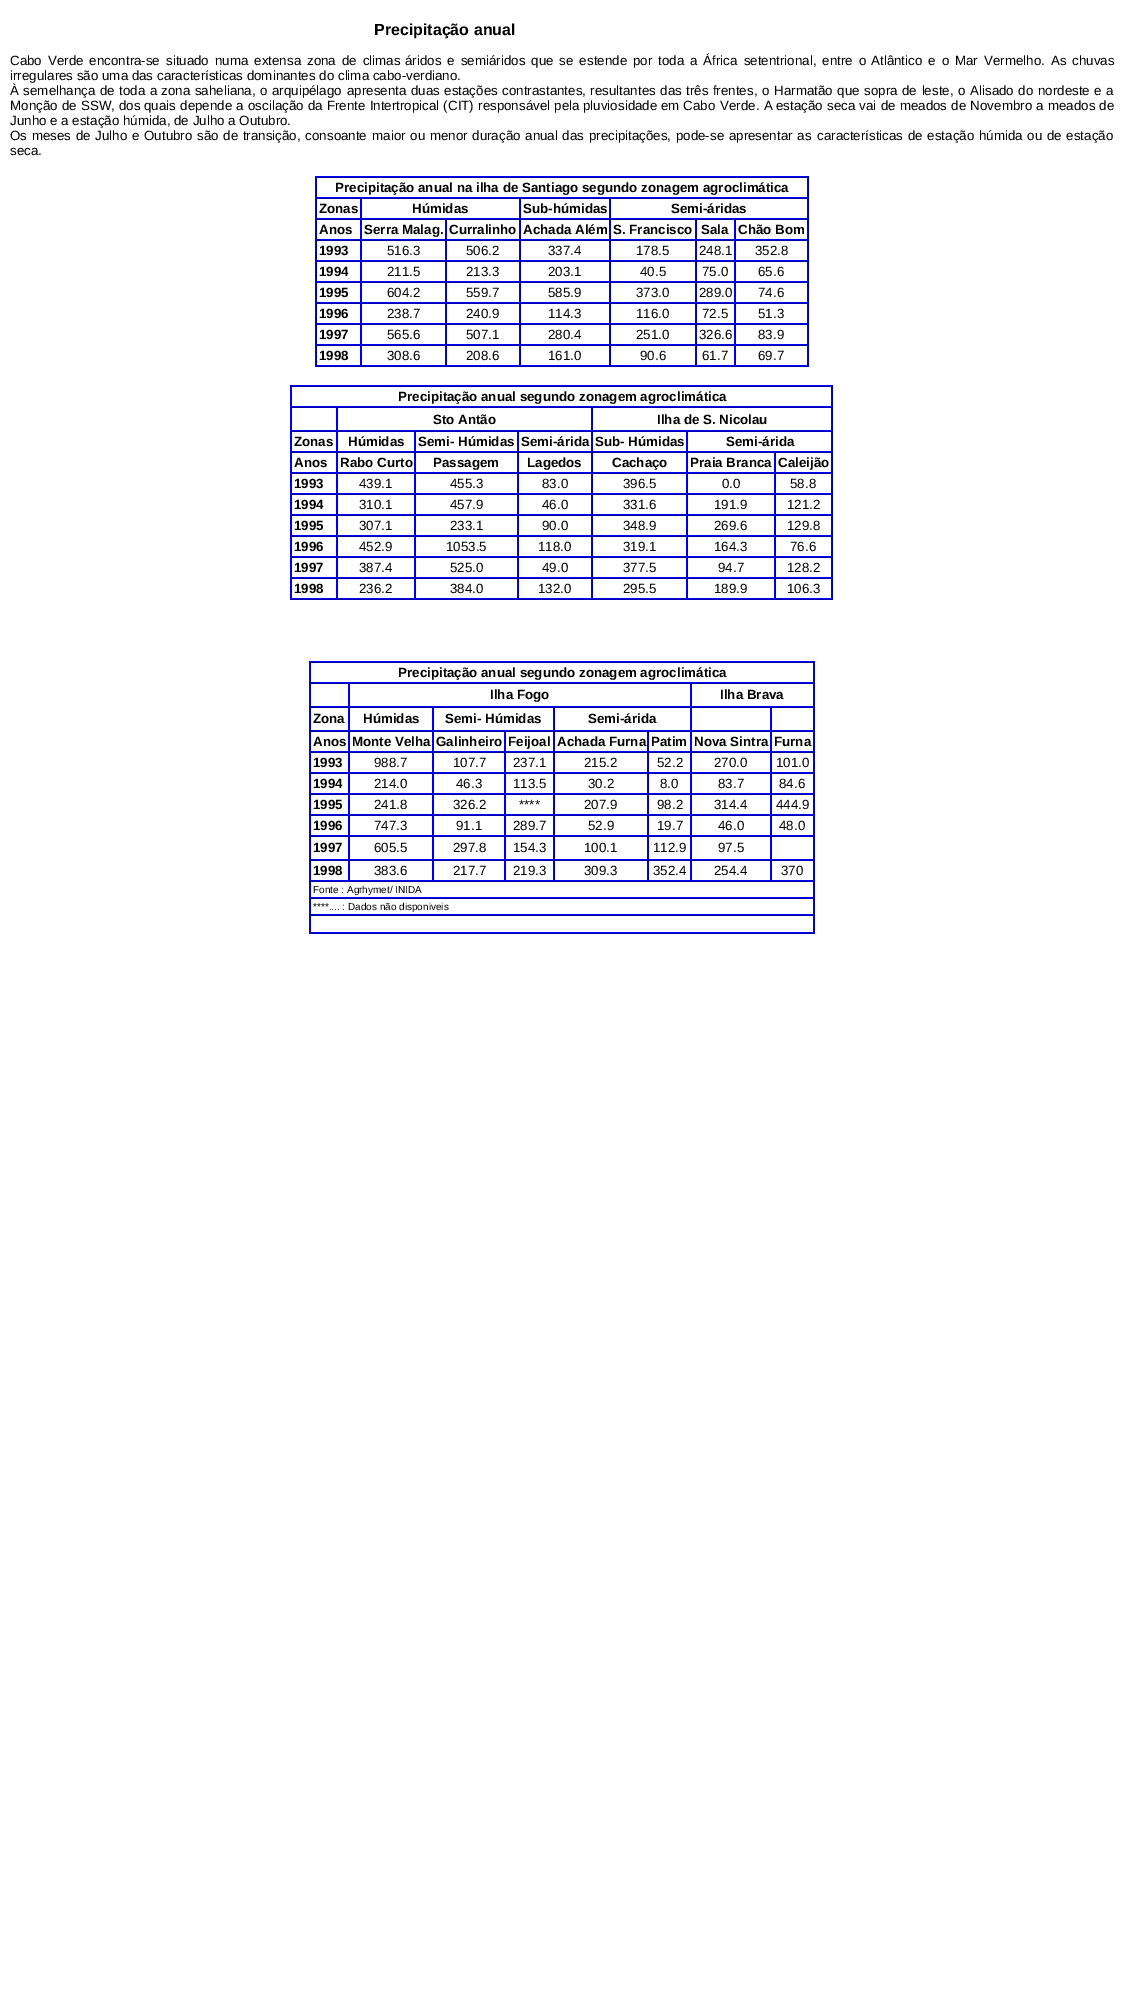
%!PS
<< /PageSize [1146 2004] >> setpagedevice
0 2004 translate 1 -1 scale
4 setmiterlimit
1 setgray
0 0 1146 2004 rectfill
/LiberationSans-Bold [16 0 0 -16 0 0] selectfont
0 setgray
374 35 moveto (Precipitação anual) show
/LiberationSans-Regular [13.35 0 0 -13.35 0 0] selectfont
10 65 moveto 2.25 0 32 (Cabo Verde encontra-se situado numa extensa zona de climas) widthshow
405 65 moveto 2.25 0 32 (áridos e semiáridos que se estende por toda a África setentrional, entre o) widthshow
871 65 moveto 2.25 0 32 (Atlântico e o Mar Vermelho. As chuvas) widthshow
10 80 moveto (irregulares são uma das características dominantes do clima cabo-verdiano.) show
10 95 moveto 0.75 0 32 (À semelhança de toda a zona saheliana, o arquipélago) widthshow
347 95 moveto 0.75 0 32 (apresenta duas estações contrastantes, resultantes das três frentes, o) widthshow
774 95 moveto 0.9 0 32 (Harmatão que sopra de leste, o Alisado do nordeste e a) widthshow
10 110 moveto 0.5 0 32 (Monção de SSW, dos) widthshow
144 110 moveto 0.5 0 32 (quais depende a oscilação da Frente Intertropical \(CIT\) responsável pela) widthshow
583 110 moveto (pluviosidade) show
661 110 moveto (em Cabo) show
720 110 moveto 0.5 0 32 (Verde. A) widthshow
776 110 moveto 0.5 0 32 (estação seca vai de meados de Novembro a meados de) widthshow
10 125 moveto (Junho e a estação húmida, de Julho a Outubro.) show
10 140 moveto 1 0 32 (Os meses de Julho e Outubro são de transição, consoante) widthshow
372 140 moveto 1 0 32 (maior ou menor duração anual das precipitações, pode-se apresentar as) widthshow
817 140 moveto 1 0 32 (características de estação húmida ou de estação) widthshow
10 155 moveto (seca.) show
0 0 1 setrgbcolor
315 176 494 1 rectfill
0 0 0.667 setrgbcolor
808 176 1 191 rectfill
315 366 494 1 rectfill
0 0 1 setrgbcolor
315 176 1 191 rectfill
0 0 0.667 setrgbcolor
316 177 492 1 rectfill
0 0 1 setrgbcolor
807 177 1 21 rectfill
316 197 492 1 rectfill
0 0 0.667 setrgbcolor
316 177 1 21 rectfill
/LiberationSans-Bold [13.35 0 0 -13.35 0 0] selectfont
0 setgray
335 192 moveto (Precipitação anual na ilha de Santiago segundo zonagem agroclimática) show
0 0 0.667 setrgbcolor
316 198 492 1 rectfill
0 0 1 setrgbcolor
360 198 1 21 rectfill
316 218 45 1 rectfill
0 0 0.667 setrgbcolor
316 198 1 21 rectfill
0 setgray
319 213 moveto (Zonas) show
0 0 1 setrgbcolor
519 198 1 21 rectfill
361 218 159 1 rectfill
0 0 0.667 setrgbcolor
361 198 1 21 rectfill
0 setgray
412 213 moveto (Húmidas) show
0 0 1 setrgbcolor
609 198 1 21 rectfill
520 218 90 1 rectfill
0 0 0.667 setrgbcolor
520 198 1 21 rectfill
0 setgray
523 213 moveto (Sub-húmidas) show
0 0 1 setrgbcolor
807 198 1 21 rectfill
610 218 198 1 rectfill
0 0 0.667 setrgbcolor
610 198 1 21 rectfill
0 setgray
671 213 moveto (Semi-áridas) show
0 0 0.667 setrgbcolor
316 219 492 1 rectfill
0 0 1 setrgbcolor
360 219 1 21 rectfill
316 239 45 1 rectfill
0 0 0.667 setrgbcolor
316 219 1 21 rectfill
0 setgray
319 234 moveto (Anos) show
0 0 1 setrgbcolor
445 219 1 21 rectfill
361 239 85 1 rectfill
0 0 0.667 setrgbcolor
361 219 1 21 rectfill
0 setgray
364 234 moveto (Serra Malag.) show
0 0 1 setrgbcolor
519 219 1 21 rectfill
446 239 74 1 rectfill
0 0 0.667 setrgbcolor
446 219 1 21 rectfill
0 setgray
449 234 moveto (Curralinho) show
0 0 1 setrgbcolor
609 219 1 21 rectfill
520 239 90 1 rectfill
0 0 0.667 setrgbcolor
520 219 1 21 rectfill
0 setgray
523 234 moveto (Achada Além) show
0 0 1 setrgbcolor
695 219 1 21 rectfill
610 239 86 1 rectfill
0 0 0.667 setrgbcolor
610 219 1 21 rectfill
0 setgray
613 234 moveto (S. Francisco) show
0 0 1 setrgbcolor
734 219 1 21 rectfill
696 239 39 1 rectfill
0 0 0.667 setrgbcolor
696 219 1 21 rectfill
0 setgray
701 234 moveto (Sala) show
0 0 1 setrgbcolor
807 219 1 21 rectfill
735 239 73 1 rectfill
0 0 0.667 setrgbcolor
735 219 1 21 rectfill
0 setgray
738 234 moveto (Chão Bom) show
0 0 0.667 setrgbcolor
316 240 492 1 rectfill
0 0 1 setrgbcolor
360 240 1 21 rectfill
316 260 45 1 rectfill
0 0 0.667 setrgbcolor
316 240 1 21 rectfill
0 setgray
319 255 moveto (1993) show
0 0 1 setrgbcolor
445 240 1 21 rectfill
361 260 85 1 rectfill
0 0 0.667 setrgbcolor
361 240 1 21 rectfill
/LiberationSans-Regular [13.35 0 0 -13.35 0 0] selectfont
0 setgray
387 255 moveto (516.3) show
0 0 1 setrgbcolor
519 240 1 21 rectfill
446 260 74 1 rectfill
0 0 0.667 setrgbcolor
446 240 1 21 rectfill
0 setgray
466 255 moveto (506.2) show
0 0 1 setrgbcolor
609 240 1 21 rectfill
520 260 90 1 rectfill
0 0 0.667 setrgbcolor
520 240 1 21 rectfill
0 setgray
548 255 moveto (337.4) show
0 0 1 setrgbcolor
695 240 1 21 rectfill
610 260 86 1 rectfill
0 0 0.667 setrgbcolor
610 240 1 21 rectfill
0 setgray
636 255 moveto (178.5) show
0 0 1 setrgbcolor
734 240 1 21 rectfill
696 260 39 1 rectfill
0 0 0.667 setrgbcolor
696 240 1 21 rectfill
0 setgray
699 255 moveto (248.1) show
0 0 1 setrgbcolor
807 240 1 21 rectfill
735 260 73 1 rectfill
0 0 0.667 setrgbcolor
735 240 1 21 rectfill
0 setgray
755 255 moveto (352.8) show
0 0 0.667 setrgbcolor
316 261 492 1 rectfill
0 0 1 setrgbcolor
360 261 1 21 rectfill
316 281 45 1 rectfill
0 0 0.667 setrgbcolor
316 261 1 21 rectfill
/LiberationSans-Bold [13.35 0 0 -13.35 0 0] selectfont
0 setgray
319 276 moveto (1994) show
0 0 1 setrgbcolor
445 261 1 21 rectfill
361 281 85 1 rectfill
0 0 0.667 setrgbcolor
361 261 1 21 rectfill
/LiberationSans-Regular [13.35 0 0 -13.35 0 0] selectfont
0 setgray
387 276 moveto (211.5) show
0 0 1 setrgbcolor
519 261 1 21 rectfill
446 281 74 1 rectfill
0 0 0.667 setrgbcolor
446 261 1 21 rectfill
0 setgray
466 276 moveto (213.3) show
0 0 1 setrgbcolor
609 261 1 21 rectfill
520 281 90 1 rectfill
0 0 0.667 setrgbcolor
520 261 1 21 rectfill
0 setgray
548 276 moveto (203.1) show
0 0 1 setrgbcolor
695 261 1 21 rectfill
610 281 86 1 rectfill
0 0 0.667 setrgbcolor
610 261 1 21 rectfill
0 setgray
640 276 moveto (40.5) show
0 0 1 setrgbcolor
734 261 1 21 rectfill
696 281 39 1 rectfill
0 0 0.667 setrgbcolor
696 261 1 21 rectfill
0 setgray
702 276 moveto (75.0) show
0 0 1 setrgbcolor
807 261 1 21 rectfill
735 281 73 1 rectfill
0 0 0.667 setrgbcolor
735 261 1 21 rectfill
0 setgray
758 276 moveto (65.6) show
0 0 0.667 setrgbcolor
316 282 492 1 rectfill
0 0 1 setrgbcolor
360 282 1 21 rectfill
316 302 45 1 rectfill
0 0 0.667 setrgbcolor
316 282 1 21 rectfill
/LiberationSans-Bold [13.35 0 0 -13.35 0 0] selectfont
0 setgray
319 297 moveto (1995) show
0 0 1 setrgbcolor
445 282 1 21 rectfill
361 302 85 1 rectfill
0 0 0.667 setrgbcolor
361 282 1 21 rectfill
/LiberationSans-Regular [13.35 0 0 -13.35 0 0] selectfont
0 setgray
387 297 moveto (604.2) show
0 0 1 setrgbcolor
519 282 1 21 rectfill
446 302 74 1 rectfill
0 0 0.667 setrgbcolor
446 282 1 21 rectfill
0 setgray
466 297 moveto (559.7) show
0 0 1 setrgbcolor
609 282 1 21 rectfill
520 302 90 1 rectfill
0 0 0.667 setrgbcolor
520 282 1 21 rectfill
0 setgray
548 297 moveto (585.9) show
0 0 1 setrgbcolor
695 282 1 21 rectfill
610 302 86 1 rectfill
0 0 0.667 setrgbcolor
610 282 1 21 rectfill
0 setgray
636 297 moveto (373.0) show
0 0 1 setrgbcolor
734 282 1 21 rectfill
696 302 39 1 rectfill
0 0 0.667 setrgbcolor
696 282 1 21 rectfill
0 setgray
699 297 moveto (289.0) show
0 0 1 setrgbcolor
807 282 1 21 rectfill
735 302 73 1 rectfill
0 0 0.667 setrgbcolor
735 282 1 21 rectfill
0 setgray
758 297 moveto (74.6) show
0 0 0.667 setrgbcolor
316 303 492 1 rectfill
0 0 1 setrgbcolor
360 303 1 21 rectfill
316 323 45 1 rectfill
0 0 0.667 setrgbcolor
316 303 1 21 rectfill
/LiberationSans-Bold [13.35 0 0 -13.35 0 0] selectfont
0 setgray
319 318 moveto (1996) show
0 0 1 setrgbcolor
445 303 1 21 rectfill
361 323 85 1 rectfill
0 0 0.667 setrgbcolor
361 303 1 21 rectfill
/LiberationSans-Regular [13.35 0 0 -13.35 0 0] selectfont
0 setgray
387 318 moveto (238.7) show
0 0 1 setrgbcolor
519 303 1 21 rectfill
446 323 74 1 rectfill
0 0 0.667 setrgbcolor
446 303 1 21 rectfill
0 setgray
466 318 moveto (240.9) show
0 0 1 setrgbcolor
609 303 1 21 rectfill
520 323 90 1 rectfill
0 0 0.667 setrgbcolor
520 303 1 21 rectfill
0 setgray
548 318 moveto (114.3) show
0 0 1 setrgbcolor
695 303 1 21 rectfill
610 323 86 1 rectfill
0 0 0.667 setrgbcolor
610 303 1 21 rectfill
0 setgray
636 318 moveto (116.0) show
0 0 1 setrgbcolor
734 303 1 21 rectfill
696 323 39 1 rectfill
0 0 0.667 setrgbcolor
696 303 1 21 rectfill
0 setgray
702 318 moveto (72.5) show
0 0 1 setrgbcolor
807 303 1 21 rectfill
735 323 73 1 rectfill
0 0 0.667 setrgbcolor
735 303 1 21 rectfill
0 setgray
758 318 moveto (51.3) show
0 0 0.667 setrgbcolor
316 324 492 1 rectfill
0 0 1 setrgbcolor
360 324 1 21 rectfill
316 344 45 1 rectfill
0 0 0.667 setrgbcolor
316 324 1 21 rectfill
/LiberationSans-Bold [13.35 0 0 -13.35 0 0] selectfont
0 setgray
319 339 moveto (1997) show
0 0 1 setrgbcolor
445 324 1 21 rectfill
361 344 85 1 rectfill
0 0 0.667 setrgbcolor
361 324 1 21 rectfill
/LiberationSans-Regular [13.35 0 0 -13.35 0 0] selectfont
0 setgray
387 339 moveto (565.6) show
0 0 1 setrgbcolor
519 324 1 21 rectfill
446 344 74 1 rectfill
0 0 0.667 setrgbcolor
446 324 1 21 rectfill
0 setgray
466 339 moveto (507.1) show
0 0 1 setrgbcolor
609 324 1 21 rectfill
520 344 90 1 rectfill
0 0 0.667 setrgbcolor
520 324 1 21 rectfill
0 setgray
548 339 moveto (280.4) show
0 0 1 setrgbcolor
695 324 1 21 rectfill
610 344 86 1 rectfill
0 0 0.667 setrgbcolor
610 324 1 21 rectfill
0 setgray
636 339 moveto (251.0) show
0 0 1 setrgbcolor
734 324 1 21 rectfill
696 344 39 1 rectfill
0 0 0.667 setrgbcolor
696 324 1 21 rectfill
0 setgray
699 339 moveto (326.6) show
0 0 1 setrgbcolor
807 324 1 21 rectfill
735 344 73 1 rectfill
0 0 0.667 setrgbcolor
735 324 1 21 rectfill
0 setgray
758 339 moveto (83.9) show
0 0 0.667 setrgbcolor
316 345 492 1 rectfill
0 0 1 setrgbcolor
360 345 1 21 rectfill
316 365 45 1 rectfill
0 0 0.667 setrgbcolor
316 345 1 21 rectfill
/LiberationSans-Bold [13.35 0 0 -13.35 0 0] selectfont
0 setgray
319 360 moveto (1998) show
0 0 1 setrgbcolor
445 345 1 21 rectfill
361 365 85 1 rectfill
0 0 0.667 setrgbcolor
361 345 1 21 rectfill
/LiberationSans-Regular [13.35 0 0 -13.35 0 0] selectfont
0 setgray
387 360 moveto (308.6) show
0 0 1 setrgbcolor
519 345 1 21 rectfill
446 365 74 1 rectfill
0 0 0.667 setrgbcolor
446 345 1 21 rectfill
0 setgray
466 360 moveto (208.6) show
0 0 1 setrgbcolor
609 345 1 21 rectfill
520 365 90 1 rectfill
0 0 0.667 setrgbcolor
520 345 1 21 rectfill
0 setgray
548 360 moveto (161.0) show
0 0 1 setrgbcolor
695 345 1 21 rectfill
610 365 86 1 rectfill
0 0 0.667 setrgbcolor
610 345 1 21 rectfill
0 setgray
640 360 moveto (90.6) show
0 0 1 setrgbcolor
734 345 1 21 rectfill
696 365 39 1 rectfill
0 0 0.667 setrgbcolor
696 345 1 21 rectfill
0 setgray
702 360 moveto (61.7) show
0 0 1 setrgbcolor
807 345 1 21 rectfill
735 365 73 1 rectfill
0 0 0.667 setrgbcolor
735 345 1 21 rectfill
0 setgray
758 360 moveto (69.7) show
0 0 1 setrgbcolor
290 385 543 1 rectfill
0 0 0.667 setrgbcolor
832 385 1 215 rectfill
290 599 543 1 rectfill
0 0 1 setrgbcolor
290 385 1 215 rectfill
0 0 0.667 setrgbcolor
291 386 541 1 rectfill
0 0 1 setrgbcolor
831 386 1 21 rectfill
291 406 541 1 rectfill
0 0 0.667 setrgbcolor
291 386 1 21 rectfill
/LiberationSans-Bold [13.35 0 0 -13.35 0 0] selectfont
0 setgray
398 401 moveto (Precipitação anual segundo zonagem agroclimática) show
0 0 0.667 setrgbcolor
291 407 541 1 rectfill
0 0 1 setrgbcolor
336 407 1 24 rectfill
291 430 46 1 rectfill
0 0 0.667 setrgbcolor
291 407 1 24 rectfill
0 0 1 setrgbcolor
591 407 1 24 rectfill
337 430 255 1 rectfill
0 0 0.667 setrgbcolor
337 407 1 24 rectfill
0 setgray
433 424 moveto (Sto Antão) show
0 0 1 setrgbcolor
831 407 1 24 rectfill
592 430 240 1 rectfill
0 0 0.667 setrgbcolor
592 407 1 24 rectfill
0 setgray
657 424 moveto (Ilha de S. Nicolau) show
0 0 0.667 setrgbcolor
291 431 541 1 rectfill
0 0 1 setrgbcolor
336 431 1 21 rectfill
291 451 46 1 rectfill
0 0 0.667 setrgbcolor
291 431 1 21 rectfill
0 setgray
294 446 moveto (Zonas) show
0 0 1 setrgbcolor
414 431 1 21 rectfill
337 451 78 1 rectfill
0 0 0.667 setrgbcolor
337 431 1 21 rectfill
0 setgray
348 446 moveto (Húmidas) show
0 0 1 setrgbcolor
517 431 1 21 rectfill
415 451 103 1 rectfill
0 0 0.667 setrgbcolor
415 431 1 21 rectfill
0 setgray
418 446 moveto (Semi- Húmidas) show
0 0 1 setrgbcolor
591 431 1 21 rectfill
518 451 74 1 rectfill
0 0 0.667 setrgbcolor
518 431 1 21 rectfill
0 setgray
521 446 moveto (Semi-árida) show
0 0 1 setrgbcolor
686 431 1 21 rectfill
592 451 95 1 rectfill
0 0 0.667 setrgbcolor
592 431 1 21 rectfill
0 setgray
595 446 moveto (Sub- Húmidas) show
0 0 1 setrgbcolor
831 431 1 21 rectfill
687 451 145 1 rectfill
0 0 0.667 setrgbcolor
687 431 1 21 rectfill
0 setgray
726 446 moveto (Semi-árida) show
0 0 0.667 setrgbcolor
291 452 541 1 rectfill
0 0 1 setrgbcolor
336 452 1 21 rectfill
291 472 46 1 rectfill
0 0 0.667 setrgbcolor
291 452 1 21 rectfill
0 setgray
294 467 moveto (Anos) show
0 0 1 setrgbcolor
414 452 1 21 rectfill
337 472 78 1 rectfill
0 0 0.667 setrgbcolor
337 452 1 21 rectfill
0 setgray
340 467 moveto (Rabo Curto) show
0 0 1 setrgbcolor
517 452 1 21 rectfill
415 472 103 1 rectfill
0 0 0.667 setrgbcolor
415 452 1 21 rectfill
0 setgray
433 467 moveto (Passagem) show
0 0 1 setrgbcolor
591 452 1 21 rectfill
518 472 74 1 rectfill
0 0 0.667 setrgbcolor
518 452 1 21 rectfill
0 setgray
527 467 moveto (Lagedos) show
0 0 1 setrgbcolor
686 452 1 21 rectfill
592 472 95 1 rectfill
0 0 0.667 setrgbcolor
592 452 1 21 rectfill
0 setgray
612 467 moveto (Cachaço) show
0 0 1 setrgbcolor
774 452 1 21 rectfill
687 472 88 1 rectfill
0 0 0.667 setrgbcolor
687 452 1 21 rectfill
0 setgray
690 467 moveto (Praia Branca) show
0 0 1 setrgbcolor
831 452 1 21 rectfill
775 472 57 1 rectfill
0 0 0.667 setrgbcolor
775 452 1 21 rectfill
0 setgray
778 467 moveto (Caleijão) show
0 0 0.667 setrgbcolor
291 473 541 1 rectfill
0 0 1 setrgbcolor
336 473 1 21 rectfill
291 493 46 1 rectfill
0 0 0.667 setrgbcolor
291 473 1 21 rectfill
0 setgray
294 488 moveto (1993) show
0 0 1 setrgbcolor
414 473 1 21 rectfill
337 493 78 1 rectfill
0 0 0.667 setrgbcolor
337 473 1 21 rectfill
/LiberationSans-Regular [13.35 0 0 -13.35 0 0] selectfont
0 setgray
359 488 moveto (439.1) show
0 0 1 setrgbcolor
517 473 1 21 rectfill
415 493 103 1 rectfill
0 0 0.667 setrgbcolor
415 473 1 21 rectfill
0 setgray
450 488 moveto (455.3) show
0 0 1 setrgbcolor
591 473 1 21 rectfill
518 493 74 1 rectfill
0 0 0.667 setrgbcolor
518 473 1 21 rectfill
0 setgray
542 488 moveto (83.0) show
0 0 1 setrgbcolor
686 473 1 21 rectfill
592 493 95 1 rectfill
0 0 0.667 setrgbcolor
592 473 1 21 rectfill
0 setgray
623 488 moveto (396.5) show
0 0 1 setrgbcolor
774 473 1 21 rectfill
687 493 88 1 rectfill
0 0 0.667 setrgbcolor
687 473 1 21 rectfill
0 setgray
722 488 moveto (0.0) show
0 0 1 setrgbcolor
831 473 1 21 rectfill
775 493 57 1 rectfill
0 0 0.667 setrgbcolor
775 473 1 21 rectfill
0 setgray
790 488 moveto (58.8) show
0 0 0.667 setrgbcolor
291 494 541 1 rectfill
0 0 1 setrgbcolor
336 494 1 21 rectfill
291 514 46 1 rectfill
0 0 0.667 setrgbcolor
291 494 1 21 rectfill
/LiberationSans-Bold [13.35 0 0 -13.35 0 0] selectfont
0 setgray
294 509 moveto (1994) show
0 0 1 setrgbcolor
414 494 1 21 rectfill
337 514 78 1 rectfill
0 0 0.667 setrgbcolor
337 494 1 21 rectfill
/LiberationSans-Regular [13.35 0 0 -13.35 0 0] selectfont
0 setgray
359 509 moveto (310.1) show
0 0 1 setrgbcolor
517 494 1 21 rectfill
415 514 103 1 rectfill
0 0 0.667 setrgbcolor
415 494 1 21 rectfill
0 setgray
450 509 moveto (457.9) show
0 0 1 setrgbcolor
591 494 1 21 rectfill
518 514 74 1 rectfill
0 0 0.667 setrgbcolor
518 494 1 21 rectfill
0 setgray
542 509 moveto (46.0) show
0 0 1 setrgbcolor
686 494 1 21 rectfill
592 514 95 1 rectfill
0 0 0.667 setrgbcolor
592 494 1 21 rectfill
0 setgray
623 509 moveto (331.6) show
0 0 1 setrgbcolor
774 494 1 21 rectfill
687 514 88 1 rectfill
0 0 0.667 setrgbcolor
687 494 1 21 rectfill
0 setgray
714 509 moveto (191.9) show
0 0 1 setrgbcolor
831 494 1 21 rectfill
775 514 57 1 rectfill
0 0 0.667 setrgbcolor
775 494 1 21 rectfill
0 setgray
787 509 moveto (121.2) show
0 0 0.667 setrgbcolor
291 515 541 1 rectfill
0 0 1 setrgbcolor
336 515 1 21 rectfill
291 535 46 1 rectfill
0 0 0.667 setrgbcolor
291 515 1 21 rectfill
/LiberationSans-Bold [13.35 0 0 -13.35 0 0] selectfont
0 setgray
294 530 moveto (1995) show
0 0 1 setrgbcolor
414 515 1 21 rectfill
337 535 78 1 rectfill
0 0 0.667 setrgbcolor
337 515 1 21 rectfill
/LiberationSans-Regular [13.35 0 0 -13.35 0 0] selectfont
0 setgray
359 530 moveto (307.1) show
0 0 1 setrgbcolor
517 515 1 21 rectfill
415 535 103 1 rectfill
0 0 0.667 setrgbcolor
415 515 1 21 rectfill
0 setgray
450 530 moveto (233.1) show
0 0 1 setrgbcolor
591 515 1 21 rectfill
518 535 74 1 rectfill
0 0 0.667 setrgbcolor
518 515 1 21 rectfill
0 setgray
542 530 moveto (90.0) show
0 0 1 setrgbcolor
686 515 1 21 rectfill
592 535 95 1 rectfill
0 0 0.667 setrgbcolor
592 515 1 21 rectfill
0 setgray
623 530 moveto (348.9) show
0 0 1 setrgbcolor
774 515 1 21 rectfill
687 535 88 1 rectfill
0 0 0.667 setrgbcolor
687 515 1 21 rectfill
0 setgray
714 530 moveto (269.6) show
0 0 1 setrgbcolor
831 515 1 21 rectfill
775 535 57 1 rectfill
0 0 0.667 setrgbcolor
775 515 1 21 rectfill
0 setgray
787 530 moveto (129.8) show
0 0 0.667 setrgbcolor
291 536 541 1 rectfill
0 0 1 setrgbcolor
336 536 1 21 rectfill
291 556 46 1 rectfill
0 0 0.667 setrgbcolor
291 536 1 21 rectfill
/LiberationSans-Bold [13.35 0 0 -13.35 0 0] selectfont
0 setgray
294 551 moveto (1996) show
0 0 1 setrgbcolor
414 536 1 21 rectfill
337 556 78 1 rectfill
0 0 0.667 setrgbcolor
337 536 1 21 rectfill
/LiberationSans-Regular [13.35 0 0 -13.35 0 0] selectfont
0 setgray
359 551 moveto (452.9) show
0 0 1 setrgbcolor
517 536 1 21 rectfill
415 556 103 1 rectfill
0 0 0.667 setrgbcolor
415 536 1 21 rectfill
0 setgray
446 551 moveto (1053.5) show
0 0 1 setrgbcolor
591 536 1 21 rectfill
518 556 74 1 rectfill
0 0 0.667 setrgbcolor
518 536 1 21 rectfill
0 setgray
538 551 moveto (118.0) show
0 0 1 setrgbcolor
686 536 1 21 rectfill
592 556 95 1 rectfill
0 0 0.667 setrgbcolor
592 536 1 21 rectfill
0 setgray
623 551 moveto (319.1) show
0 0 1 setrgbcolor
774 536 1 21 rectfill
687 556 88 1 rectfill
0 0 0.667 setrgbcolor
687 536 1 21 rectfill
0 setgray
714 551 moveto (164.3) show
0 0 1 setrgbcolor
831 536 1 21 rectfill
775 556 57 1 rectfill
0 0 0.667 setrgbcolor
775 536 1 21 rectfill
0 setgray
790 551 moveto (76.6) show
0 0 0.667 setrgbcolor
291 557 541 1 rectfill
0 0 1 setrgbcolor
336 557 1 21 rectfill
291 577 46 1 rectfill
0 0 0.667 setrgbcolor
291 557 1 21 rectfill
/LiberationSans-Bold [13.35 0 0 -13.35 0 0] selectfont
0 setgray
294 572 moveto (1997) show
0 0 1 setrgbcolor
414 557 1 21 rectfill
337 577 78 1 rectfill
0 0 0.667 setrgbcolor
337 557 1 21 rectfill
/LiberationSans-Regular [13.35 0 0 -13.35 0 0] selectfont
0 setgray
359 572 moveto (387.4) show
0 0 1 setrgbcolor
517 557 1 21 rectfill
415 577 103 1 rectfill
0 0 0.667 setrgbcolor
415 557 1 21 rectfill
0 setgray
450 572 moveto (525.0) show
0 0 1 setrgbcolor
591 557 1 21 rectfill
518 577 74 1 rectfill
0 0 0.667 setrgbcolor
518 557 1 21 rectfill
0 setgray
542 572 moveto (49.0) show
0 0 1 setrgbcolor
686 557 1 21 rectfill
592 577 95 1 rectfill
0 0 0.667 setrgbcolor
592 557 1 21 rectfill
0 setgray
623 572 moveto (377.5) show
0 0 1 setrgbcolor
774 557 1 21 rectfill
687 577 88 1 rectfill
0 0 0.667 setrgbcolor
687 557 1 21 rectfill
0 setgray
718 572 moveto (94.7) show
0 0 1 setrgbcolor
831 557 1 21 rectfill
775 577 57 1 rectfill
0 0 0.667 setrgbcolor
775 557 1 21 rectfill
0 setgray
787 572 moveto (128.2) show
0 0 0.667 setrgbcolor
291 578 541 1 rectfill
0 0 1 setrgbcolor
336 578 1 21 rectfill
291 598 46 1 rectfill
0 0 0.667 setrgbcolor
291 578 1 21 rectfill
/LiberationSans-Bold [13.35 0 0 -13.35 0 0] selectfont
0 setgray
294 593 moveto (1998) show
0 0 1 setrgbcolor
414 578 1 21 rectfill
337 598 78 1 rectfill
0 0 0.667 setrgbcolor
337 578 1 21 rectfill
/LiberationSans-Regular [13.35 0 0 -13.35 0 0] selectfont
0 setgray
359 593 moveto (236.2) show
0 0 1 setrgbcolor
517 578 1 21 rectfill
415 598 103 1 rectfill
0 0 0.667 setrgbcolor
415 578 1 21 rectfill
0 setgray
450 593 moveto (384.0) show
0 0 1 setrgbcolor
591 578 1 21 rectfill
518 598 74 1 rectfill
0 0 0.667 setrgbcolor
518 578 1 21 rectfill
0 setgray
538 593 moveto (132.0) show
0 0 1 setrgbcolor
686 578 1 21 rectfill
592 598 95 1 rectfill
0 0 0.667 setrgbcolor
592 578 1 21 rectfill
0 setgray
623 593 moveto (295.5) show
0 0 1 setrgbcolor
774 578 1 21 rectfill
687 598 88 1 rectfill
0 0 0.667 setrgbcolor
687 578 1 21 rectfill
0 setgray
714 593 moveto (189.9) show
0 0 1 setrgbcolor
831 578 1 21 rectfill
775 598 57 1 rectfill
0 0 0.667 setrgbcolor
775 578 1 21 rectfill
0 setgray
787 593 moveto (106.3) show
0 0 1 setrgbcolor
309 661 506 1 rectfill
0 0 0.667 setrgbcolor
814 661 1 273 rectfill
309 933 506 1 rectfill
0 0 1 setrgbcolor
309 661 1 273 rectfill
0 0 0.667 setrgbcolor
310 662 504 1 rectfill
0 0 1 setrgbcolor
813 662 1 21 rectfill
310 682 504 1 rectfill
0 0 0.667 setrgbcolor
310 662 1 21 rectfill
/LiberationSans-Bold [13.35 0 0 -13.35 0 0] selectfont
0 setgray
398 677 moveto (Precipitação anual segundo zonagem agroclimática) show
0 0 0.667 setrgbcolor
310 683 504 1 rectfill
0 0 1 setrgbcolor
348 683 1 24 rectfill
310 706 39 1 rectfill
0 0 0.667 setrgbcolor
310 683 1 24 rectfill
0 0 1 setrgbcolor
690 683 1 24 rectfill
349 706 342 1 rectfill
0 0 0.667 setrgbcolor
349 683 1 24 rectfill
0 setgray
490 699 moveto (Ilha Fogo) show
0 0 1 setrgbcolor
813 683 1 24 rectfill
691 706 123 1 rectfill
0 0 0.667 setrgbcolor
691 683 1 24 rectfill
0 setgray
720 699 moveto (Ilha Brava) show
0 0 0.667 setrgbcolor
310 707 504 1 rectfill
0 0 1 setrgbcolor
348 707 1 24 rectfill
310 730 39 1 rectfill
0 0 0.667 setrgbcolor
310 707 1 24 rectfill
0 setgray
313 723 moveto (Zona) show
0 0 1 setrgbcolor
432 707 1 24 rectfill
349 730 84 1 rectfill
0 0 0.667 setrgbcolor
349 707 1 24 rectfill
0 setgray
363 723 moveto (Húmidas) show
0 0 1 setrgbcolor
553 707 1 24 rectfill
433 730 121 1 rectfill
0 0 0.667 setrgbcolor
433 707 1 24 rectfill
0 setgray
445 723 moveto (Semi- Húmidas) show
0 0 1 setrgbcolor
690 707 1 24 rectfill
554 730 137 1 rectfill
0 0 0.667 setrgbcolor
554 707 1 24 rectfill
0 setgray
588 723 moveto (Semi-árida) show
0 0 1 setrgbcolor
770 707 1 24 rectfill
691 730 80 1 rectfill
0 0 0.667 setrgbcolor
691 707 1 24 rectfill
0 0 1 setrgbcolor
813 707 1 24 rectfill
771 730 43 1 rectfill
0 0 0.667 setrgbcolor
771 707 1 24 rectfill
310 731 504 1 rectfill
0 0 1 setrgbcolor
348 731 1 21 rectfill
310 751 39 1 rectfill
0 0 0.667 setrgbcolor
310 731 1 21 rectfill
0 setgray
313 746 moveto (Anos) show
0 0 1 setrgbcolor
432 731 1 21 rectfill
349 751 84 1 rectfill
0 0 0.667 setrgbcolor
349 731 1 21 rectfill
0 setgray
352 746 moveto (Monte Velha) show
0 0 1 setrgbcolor
504 731 1 21 rectfill
433 751 72 1 rectfill
0 0 0.667 setrgbcolor
433 731 1 21 rectfill
0 setgray
436 746 moveto (Galinheiro) show
0 0 1 setrgbcolor
553 731 1 21 rectfill
505 751 49 1 rectfill
0 0 0.667 setrgbcolor
505 731 1 21 rectfill
0 setgray
508 746 moveto (Feijoal) show
0 0 1 setrgbcolor
647 731 1 21 rectfill
554 751 94 1 rectfill
0 0 0.667 setrgbcolor
554 731 1 21 rectfill
0 setgray
557 746 moveto (Achada Furna) show
0 0 1 setrgbcolor
690 731 1 21 rectfill
648 751 43 1 rectfill
0 0 0.667 setrgbcolor
648 731 1 21 rectfill
0 setgray
651 746 moveto (Patim) show
0 0 1 setrgbcolor
770 731 1 21 rectfill
691 751 80 1 rectfill
0 0 0.667 setrgbcolor
691 731 1 21 rectfill
0 setgray
694 746 moveto (Nova Sintra) show
0 0 1 setrgbcolor
813 731 1 21 rectfill
771 751 43 1 rectfill
0 0 0.667 setrgbcolor
771 731 1 21 rectfill
0 setgray
774 746 moveto (Furna) show
0 0 0.667 setrgbcolor
310 752 504 1 rectfill
0 0 1 setrgbcolor
348 752 1 21 rectfill
310 772 39 1 rectfill
0 0 0.667 setrgbcolor
310 752 1 21 rectfill
0 setgray
313 767 moveto (1993) show
0 0 1 setrgbcolor
432 752 1 21 rectfill
349 772 84 1 rectfill
0 0 0.667 setrgbcolor
349 752 1 21 rectfill
/LiberationSans-Regular [13.35 0 0 -13.35 0 0] selectfont
0 setgray
374 767 moveto (988.7) show
0 0 1 setrgbcolor
504 752 1 21 rectfill
433 772 72 1 rectfill
0 0 0.667 setrgbcolor
433 752 1 21 rectfill
0 setgray
453 767 moveto (107.7) show
0 0 1 setrgbcolor
553 752 1 21 rectfill
505 772 49 1 rectfill
0 0 0.667 setrgbcolor
505 752 1 21 rectfill
0 setgray
513 767 moveto (237.1) show
0 0 1 setrgbcolor
647 752 1 21 rectfill
554 772 94 1 rectfill
0 0 0.667 setrgbcolor
554 752 1 21 rectfill
0 setgray
584 767 moveto (215.2) show
0 0 1 setrgbcolor
690 752 1 21 rectfill
648 772 43 1 rectfill
0 0 0.667 setrgbcolor
648 752 1 21 rectfill
0 setgray
657 767 moveto (52.2) show
0 0 1 setrgbcolor
770 752 1 21 rectfill
691 772 80 1 rectfill
0 0 0.667 setrgbcolor
691 752 1 21 rectfill
0 setgray
714 767 moveto (270.0) show
0 0 1 setrgbcolor
813 752 1 21 rectfill
771 772 43 1 rectfill
0 0 0.667 setrgbcolor
771 752 1 21 rectfill
0 setgray
776 767 moveto (101.0) show
0 0 0.667 setrgbcolor
310 773 504 1 rectfill
0 0 1 setrgbcolor
348 773 1 21 rectfill
310 793 39 1 rectfill
0 0 0.667 setrgbcolor
310 773 1 21 rectfill
/LiberationSans-Bold [13.35 0 0 -13.35 0 0] selectfont
0 setgray
313 788 moveto (1994) show
0 0 1 setrgbcolor
432 773 1 21 rectfill
349 793 84 1 rectfill
0 0 0.667 setrgbcolor
349 773 1 21 rectfill
/LiberationSans-Regular [13.35 0 0 -13.35 0 0] selectfont
0 setgray
374 788 moveto (214.0) show
0 0 1 setrgbcolor
504 773 1 21 rectfill
433 793 72 1 rectfill
0 0 0.667 setrgbcolor
433 773 1 21 rectfill
0 setgray
456 788 moveto (46.3) show
0 0 1 setrgbcolor
553 773 1 21 rectfill
505 793 49 1 rectfill
0 0 0.667 setrgbcolor
505 773 1 21 rectfill
0 setgray
513 788 moveto (113.5) show
0 0 1 setrgbcolor
647 773 1 21 rectfill
554 793 94 1 rectfill
0 0 0.667 setrgbcolor
554 773 1 21 rectfill
0 setgray
588 788 moveto (30.2) show
0 0 1 setrgbcolor
690 773 1 21 rectfill
648 793 43 1 rectfill
0 0 0.667 setrgbcolor
648 773 1 21 rectfill
0 setgray
660 788 moveto (8.0) show
0 0 1 setrgbcolor
770 773 1 21 rectfill
691 793 80 1 rectfill
0 0 0.667 setrgbcolor
691 773 1 21 rectfill
0 setgray
718 788 moveto (83.7) show
0 0 1 setrgbcolor
813 773 1 21 rectfill
771 793 43 1 rectfill
0 0 0.667 setrgbcolor
771 773 1 21 rectfill
0 setgray
779 788 moveto (84.6) show
0 0 0.667 setrgbcolor
310 794 504 1 rectfill
0 0 1 setrgbcolor
348 794 1 21 rectfill
310 814 39 1 rectfill
0 0 0.667 setrgbcolor
310 794 1 21 rectfill
/LiberationSans-Bold [13.35 0 0 -13.35 0 0] selectfont
0 setgray
313 809 moveto (1995) show
0 0 1 setrgbcolor
432 794 1 21 rectfill
349 814 84 1 rectfill
0 0 0.667 setrgbcolor
349 794 1 21 rectfill
/LiberationSans-Regular [13.35 0 0 -13.35 0 0] selectfont
0 setgray
374 809 moveto (241.8) show
0 0 1 setrgbcolor
504 794 1 21 rectfill
433 814 72 1 rectfill
0 0 0.667 setrgbcolor
433 794 1 21 rectfill
0 setgray
453 809 moveto (326.2) show
0 0 1 setrgbcolor
553 794 1 21 rectfill
505 814 49 1 rectfill
0 0 0.667 setrgbcolor
505 794 1 21 rectfill
0 setgray
519 809 moveto (****) show
0 0 1 setrgbcolor
647 794 1 21 rectfill
554 814 94 1 rectfill
0 0 0.667 setrgbcolor
554 794 1 21 rectfill
0 setgray
584 809 moveto (207.9) show
0 0 1 setrgbcolor
690 794 1 21 rectfill
648 814 43 1 rectfill
0 0 0.667 setrgbcolor
648 794 1 21 rectfill
0 setgray
657 809 moveto (98.2) show
0 0 1 setrgbcolor
770 794 1 21 rectfill
691 814 80 1 rectfill
0 0 0.667 setrgbcolor
691 794 1 21 rectfill
0 setgray
714 809 moveto (314.4) show
0 0 1 setrgbcolor
813 794 1 21 rectfill
771 814 43 1 rectfill
0 0 0.667 setrgbcolor
771 794 1 21 rectfill
0 setgray
776 809 moveto (444.9) show
0 0 0.667 setrgbcolor
310 815 504 1 rectfill
0 0 1 setrgbcolor
348 815 1 21 rectfill
310 835 39 1 rectfill
0 0 0.667 setrgbcolor
310 815 1 21 rectfill
/LiberationSans-Bold [13.35 0 0 -13.35 0 0] selectfont
0 setgray
313 830 moveto (1996) show
0 0 1 setrgbcolor
432 815 1 21 rectfill
349 835 84 1 rectfill
0 0 0.667 setrgbcolor
349 815 1 21 rectfill
/LiberationSans-Regular [13.35 0 0 -13.35 0 0] selectfont
0 setgray
374 830 moveto (747.3) show
0 0 1 setrgbcolor
504 815 1 21 rectfill
433 835 72 1 rectfill
0 0 0.667 setrgbcolor
433 815 1 21 rectfill
0 setgray
456 830 moveto (91.1) show
0 0 1 setrgbcolor
553 815 1 21 rectfill
505 835 49 1 rectfill
0 0 0.667 setrgbcolor
505 815 1 21 rectfill
0 setgray
513 830 moveto (289.7) show
0 0 1 setrgbcolor
647 815 1 21 rectfill
554 835 94 1 rectfill
0 0 0.667 setrgbcolor
554 815 1 21 rectfill
0 setgray
588 830 moveto (52.9) show
0 0 1 setrgbcolor
690 815 1 21 rectfill
648 835 43 1 rectfill
0 0 0.667 setrgbcolor
648 815 1 21 rectfill
0 setgray
657 830 moveto (19.7) show
0 0 1 setrgbcolor
770 815 1 21 rectfill
691 835 80 1 rectfill
0 0 0.667 setrgbcolor
691 815 1 21 rectfill
0 setgray
718 830 moveto (46.0) show
0 0 1 setrgbcolor
813 815 1 21 rectfill
771 835 43 1 rectfill
0 0 0.667 setrgbcolor
771 815 1 21 rectfill
0 setgray
779 830 moveto (48.0) show
0 0 0.667 setrgbcolor
310 836 504 1 rectfill
0 0 1 setrgbcolor
348 836 1 24 rectfill
310 859 39 1 rectfill
0 0 0.667 setrgbcolor
310 836 1 24 rectfill
/LiberationSans-Bold [13.35 0 0 -13.35 0 0] selectfont
0 setgray
313 852 moveto (1997) show
0 0 1 setrgbcolor
432 836 1 24 rectfill
349 859 84 1 rectfill
0 0 0.667 setrgbcolor
349 836 1 24 rectfill
/LiberationSans-Regular [13.35 0 0 -13.35 0 0] selectfont
0 setgray
374 852 moveto (605.5) show
0 0 1 setrgbcolor
504 836 1 24 rectfill
433 859 72 1 rectfill
0 0 0.667 setrgbcolor
433 836 1 24 rectfill
0 setgray
453 852 moveto (297.8) show
0 0 1 setrgbcolor
553 836 1 24 rectfill
505 859 49 1 rectfill
0 0 0.667 setrgbcolor
505 836 1 24 rectfill
0 setgray
513 852 moveto (154.3) show
0 0 1 setrgbcolor
647 836 1 24 rectfill
554 859 94 1 rectfill
0 0 0.667 setrgbcolor
554 836 1 24 rectfill
0 setgray
584 852 moveto (100.1) show
0 0 1 setrgbcolor
690 836 1 24 rectfill
648 859 43 1 rectfill
0 0 0.667 setrgbcolor
648 836 1 24 rectfill
0 setgray
653 852 moveto (112.9) show
0 0 1 setrgbcolor
770 836 1 24 rectfill
691 859 80 1 rectfill
0 0 0.667 setrgbcolor
691 836 1 24 rectfill
0 setgray
718 852 moveto (97.5) show
0 0 1 setrgbcolor
813 836 1 24 rectfill
771 859 43 1 rectfill
0 0 0.667 setrgbcolor
771 836 1 24 rectfill
310 860 504 1 rectfill
0 0 1 setrgbcolor
348 860 1 21 rectfill
310 880 39 1 rectfill
0 0 0.667 setrgbcolor
310 860 1 21 rectfill
/LiberationSans-Bold [13.35 0 0 -13.35 0 0] selectfont
0 setgray
313 875 moveto (1998) show
0 0 1 setrgbcolor
432 860 1 21 rectfill
349 880 84 1 rectfill
0 0 0.667 setrgbcolor
349 860 1 21 rectfill
/LiberationSans-Regular [13.35 0 0 -13.35 0 0] selectfont
0 setgray
374 875 moveto (383.6) show
0 0 1 setrgbcolor
504 860 1 21 rectfill
433 880 72 1 rectfill
0 0 0.667 setrgbcolor
433 860 1 21 rectfill
0 setgray
453 875 moveto (217.7) show
0 0 1 setrgbcolor
553 860 1 21 rectfill
505 880 49 1 rectfill
0 0 0.667 setrgbcolor
505 860 1 21 rectfill
0 setgray
513 875 moveto (219.3) show
0 0 1 setrgbcolor
647 860 1 21 rectfill
554 880 94 1 rectfill
0 0 0.667 setrgbcolor
554 860 1 21 rectfill
0 setgray
584 875 moveto (309.3) show
0 0 1 setrgbcolor
690 860 1 21 rectfill
648 880 43 1 rectfill
0 0 0.667 setrgbcolor
648 860 1 21 rectfill
0 setgray
653 875 moveto (352.4) show
0 0 1 setrgbcolor
770 860 1 21 rectfill
691 880 80 1 rectfill
0 0 0.667 setrgbcolor
691 860 1 21 rectfill
0 setgray
714 875 moveto (254.4) show
0 0 1 setrgbcolor
813 860 1 21 rectfill
771 880 43 1 rectfill
0 0 0.667 setrgbcolor
771 860 1 21 rectfill
0 setgray
781 875 moveto (370) show
0 0 0.667 setrgbcolor
310 881 504 1 rectfill
0 0 1 setrgbcolor
813 881 1 17 rectfill
310 897 504 1 rectfill
0 0 0.667 setrgbcolor
310 881 1 17 rectfill
/LiberationSans-Regular [10 0 0 -10 0 0] selectfont
0 setgray
313 893 moveto (Fonte : Agrhymet/ INIDA) show
0 0 0.667 setrgbcolor
310 898 504 1 rectfill
0 0 1 setrgbcolor
813 898 1 17 rectfill
310 914 504 1 rectfill
0 0 0.667 setrgbcolor
310 898 1 17 rectfill
0 setgray
313 910 moveto (****.... : Dados não disponiveis) show
0 0 0.667 setrgbcolor
310 915 504 1 rectfill
0 0 1 setrgbcolor
813 915 1 18 rectfill
310 932 504 1 rectfill
0 0 0.667 setrgbcolor
310 915 1 18 rectfill
showpage
